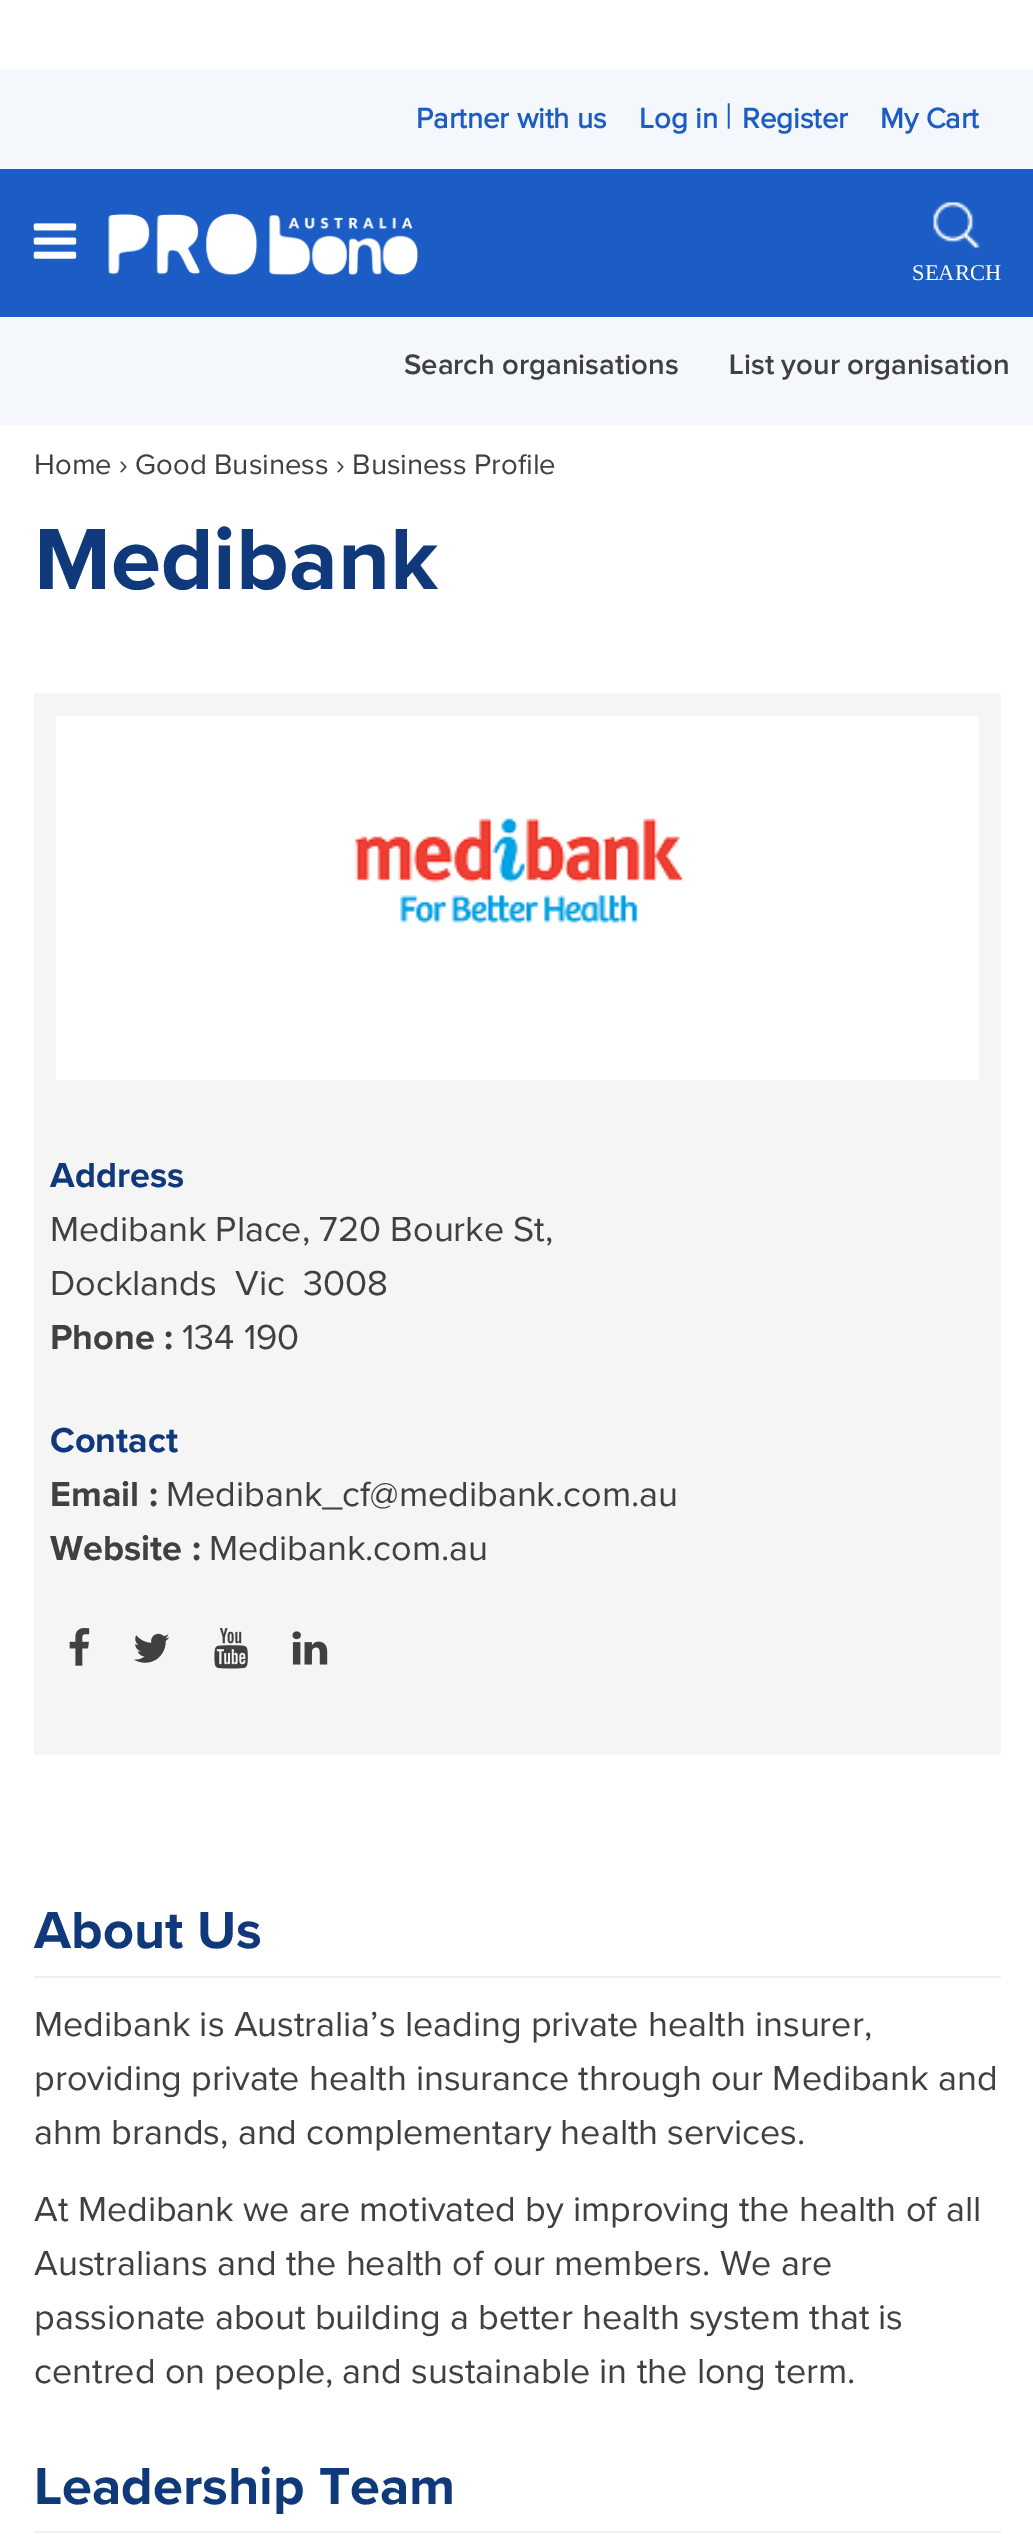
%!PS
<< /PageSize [1033 2534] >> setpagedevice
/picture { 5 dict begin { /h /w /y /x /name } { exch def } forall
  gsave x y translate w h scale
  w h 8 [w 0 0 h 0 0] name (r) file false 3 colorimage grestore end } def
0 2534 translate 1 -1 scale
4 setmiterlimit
1 setgray
0 0 1033 2534 rectfill
0.957 0.969 0.988 setrgbcolor
0 70 1033 99 rectfill
/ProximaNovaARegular-Bold [29.25 0 0 -29.25 0 0] selectfont
0.11 0.365 0.773 setrgbcolor
416 128 moveto (Partner with us) show
639 128 moveto (Log in) show
/ProximaNovaARegular-Regular [36 0 0 -36 0 0] selectfont
725 128 moveto (|) show
/ProximaNovaARegular-Bold [29.25 0 0 -29.25 0 0] selectfont
742 128 moveto (Register) show
880 128 moveto (My Cart) show
0 169 1033 148 rectfill
(img1.rgb) 33 223 44 36 picture
(img2.rgb) 108 213 311 63 picture
(img3.rgb) 933 202 47 47 picture
/LiberationSerif-Regular [22.5 0 0 -22.5 0 0] selectfont
1 setgray
912 280 moveto (SEARCH) show
0.957 0.969 0.988 setrgbcolor
0 317 1033 108 rectfill
/ProximaNova-SemiBold [29.25 0 0 -29.25 0 0] selectfont
0.251 setgray
404 374 moveto (Search organisations) show
729 374 moveto (List your organisation) show
/ProximaNovaARegular-Regular [29.25 0 0 -29.25 0 0] selectfont
34 474 moveto (Home › Good Business › Business Profile) show
/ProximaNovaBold-Regular [90 0 0 -90 0 0] selectfont
0.063 0.224 0.482 setrgbcolor
34 589 moveto (Medibank) show
0.961 setgray
34 693 967 1062 rectfill
1 setgray
56 716 923 364 rectfill
(img4.rgb) 295 715 447 209 picture
/ProximaNovaBold-Regular [36 0 0 -36 0 0] selectfont
0.063 0.224 0.482 setrgbcolor
50 1187 moveto (Address) show
/ProximaNovaARegular-Regular [36 0 0 -36 0 0] selectfont
0.251 setgray
50 1241 moveto (Medibank Place, 720 Bourke St,) show
50 1295 moveto (Docklands) show
235 1295 moveto (Vic) show
303 1295 moveto (3008) show
/ProximaNovaBold-Regular [36 0 0 -36 0 0] selectfont
50 1349 moveto (Phone :) show
/ProximaNovaARegular-Regular [36 0 0 -36 0 0] selectfont
182 1349 moveto (134 190) show
/ProximaNovaBold-Regular [36 0 0 -36 0 0] selectfont
0.063 0.224 0.482 setrgbcolor
50 1452 moveto (Contact) show
0.251 setgray
50 1506 moveto (Email :) show
/ProximaNovaARegular-Regular [36 0 0 -36 0 0] selectfont
166 1506 moveto (Medibank_cf@medibank.com.au) show
/ProximaNovaBold-Regular [36 0 0 -36 0 0] selectfont
50 1560 moveto (Website :) show
/ProximaNovaARegular-Regular [36 0 0 -36 0 0] selectfont
209 1560 moveto (Medibank.com.au) show
(img5.rgb) 69 1628 21 38 picture
(img6.rgb) 134 1633 36 30 picture
(img7.rgb) 214 1628 34 41 picture
(img8.rgb) 292 1631 36 34 picture
0.937 setgray
34 1976 967 2 rectfill
/ProximaNovaBold-Regular [54 0 0 -54 0 0] selectfont
0.063 0.224 0.482 setrgbcolor
34 1948 moveto (About Us) show
/ProximaNovaARegular-Regular [36 0 0 -36 0 0] selectfont
0.251 setgray
34 2036 moveto (Medibank is Australia’s leading private health insurer,) show
34 2090 moveto (providing private health insurance through our Medibank and) show
34 2144 moveto (ahm brands, and complementary health services.) show
34 2221 moveto (At Medibank we are motivated by improving the health of all) show
34 2275 moveto (Australians and the health of our members. We are) show
34 2329 moveto (passionate about building a better health system that is) show
34 2383 moveto (centred on people, and sustainable in the long term.) show
0.937 setgray
34 2531 967 2 rectfill
/ProximaNovaBold-Regular [54 0 0 -54 0 0] selectfont
0.063 0.224 0.482 setrgbcolor
34 2504 moveto (Leadership Team) show
showpage
